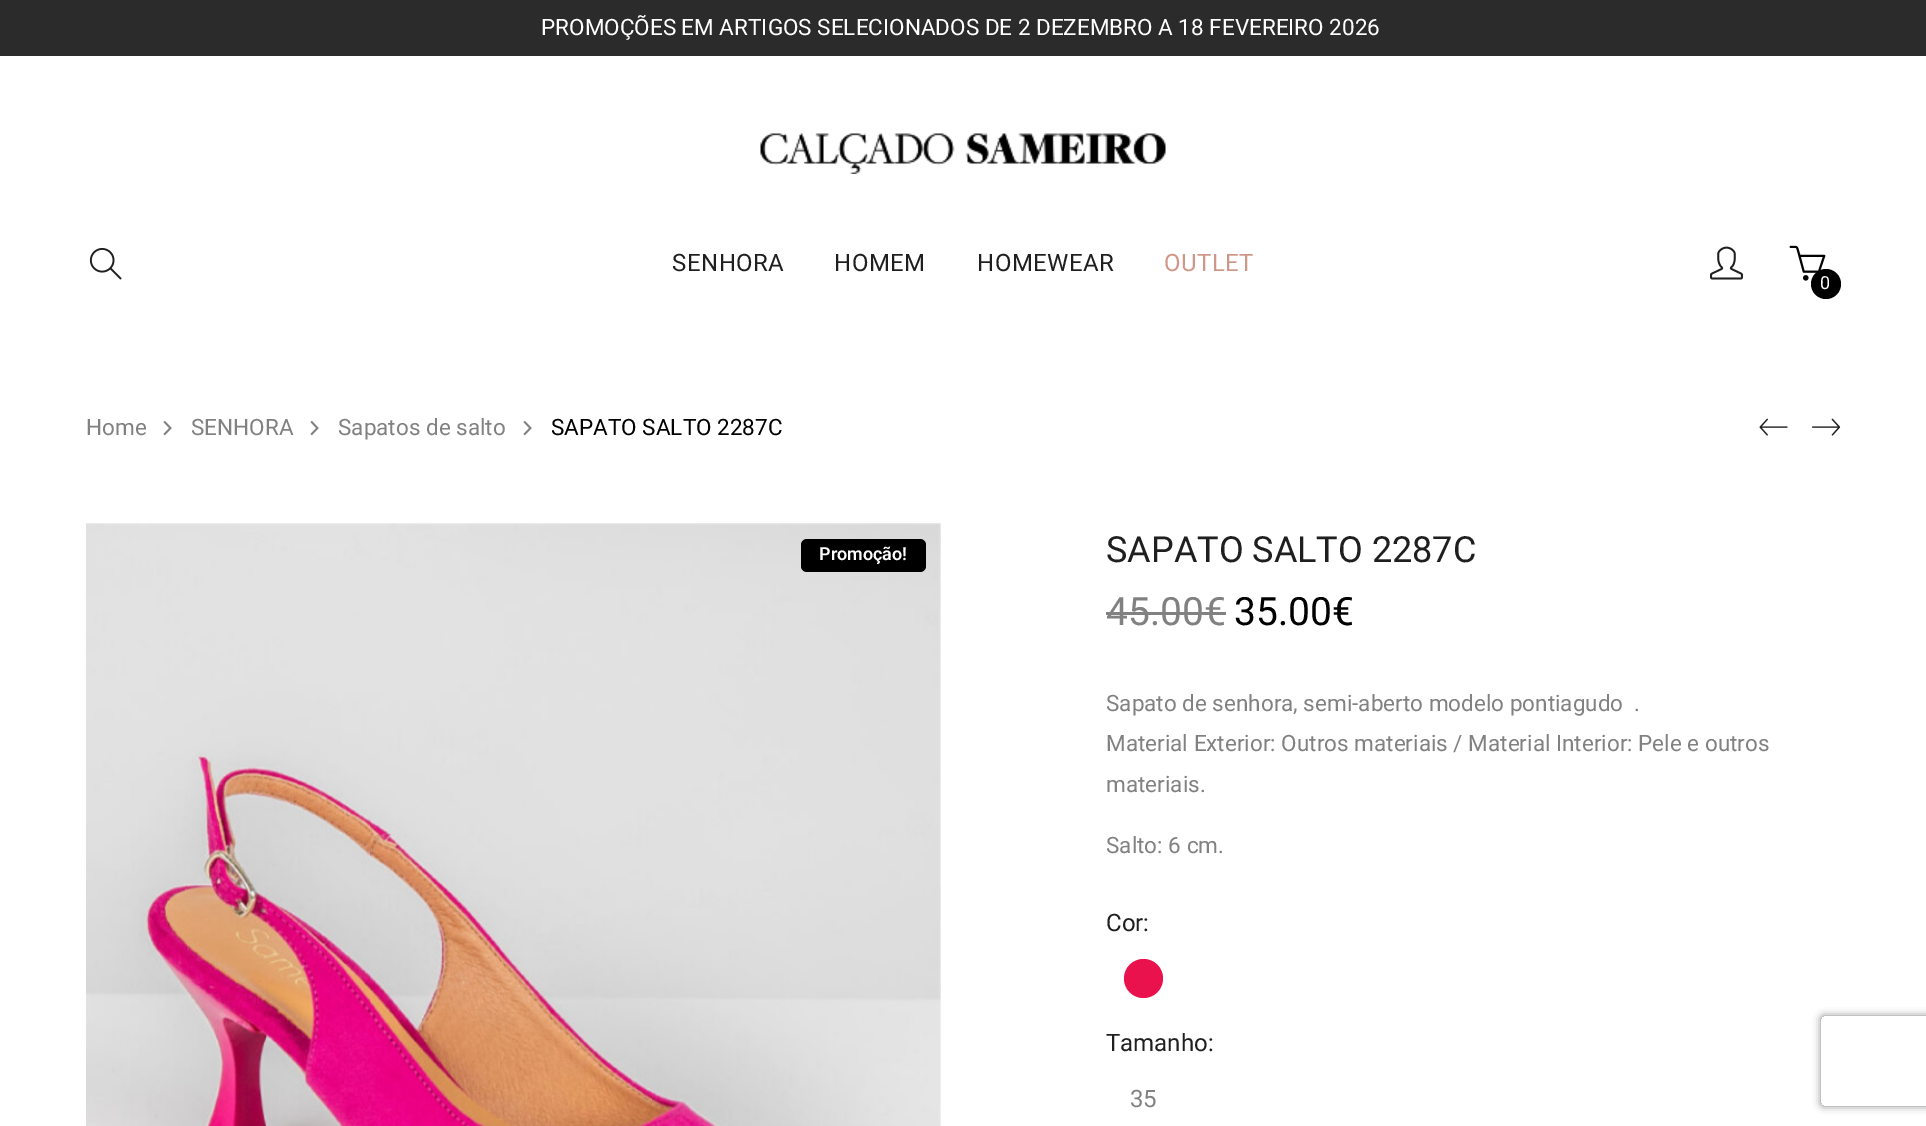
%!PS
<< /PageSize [1926 1126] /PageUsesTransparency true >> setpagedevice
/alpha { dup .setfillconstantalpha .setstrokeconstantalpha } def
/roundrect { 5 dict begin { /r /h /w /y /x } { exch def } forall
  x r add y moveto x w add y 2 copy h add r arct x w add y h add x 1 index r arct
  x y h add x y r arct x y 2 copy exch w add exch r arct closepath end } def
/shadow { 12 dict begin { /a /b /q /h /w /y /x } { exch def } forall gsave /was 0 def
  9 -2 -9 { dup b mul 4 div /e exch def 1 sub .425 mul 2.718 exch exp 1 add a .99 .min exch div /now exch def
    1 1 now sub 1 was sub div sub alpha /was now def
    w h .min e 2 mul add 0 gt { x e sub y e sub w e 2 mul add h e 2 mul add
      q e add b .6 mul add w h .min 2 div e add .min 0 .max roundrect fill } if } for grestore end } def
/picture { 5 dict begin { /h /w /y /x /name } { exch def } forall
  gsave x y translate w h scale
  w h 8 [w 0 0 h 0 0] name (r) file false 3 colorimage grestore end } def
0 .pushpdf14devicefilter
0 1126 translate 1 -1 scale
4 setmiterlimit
1 setgray
0 0 1926 1126 rectfill
0.169 setgray
0 0 1926 56 rectfill
/Roboto-Regular [22.5 0 0 -22.5 0 0] selectfont
1 setgray
541 35 moveto (PROMOÇÕES EM ARTIGOS SELECIONADOS DE 2 DEZEMBRO A 18 FEVEREIRO 2026) show
(img1.rgb) 760 133 406 41 picture
(img2.rgb) 89 248 33 32 picture
/Roboto-Regular [24 0 0 -24 0 0] selectfont
0.125 0.122 0.122 setrgbcolor
672 271 moveto 0.5 0 (SENHORA) ashow
834 271 moveto 0.5 0 (HOMEM) ashow
977 271 moveto 0.5 0 (HOMEWEAR) ashow
0.812 0.592 0.533 setrgbcolor
1164 271 moveto 0.5 0 (OUTLET) ashow
(img3.rgb) 1710 246 33 34 picture
(img4.rgb) 1789 245 37 36 picture
0 setgray
newpath 1826 284 15 0 360 arc closepath fill
/Roboto-Regular [18 0 0 -18 0 0] selectfont
1 setgray
1820 289 moveto (0) show
/Roboto-Regular [22.5 0 0 -22.5 0 0] selectfont
0.506 setgray
86 435 moveto (Home) show
(img5.rgb) 163 420 9 16 picture
191 435 moveto (SENHORA) show
(img5.rgb) 310 420 9 16 picture
338 435 moveto (Sapatos de salto) show
(img5.rgb) 523 420 9 16 picture
0 setgray
551 435 moveto (SAPATO SALTO 2287C) show
(img6.rgb) 1759 418 29 18 picture
(img7.rgb) 1812 418 29 18 picture
(img8.rgb) 86 523 855 603 picture
801 539 125 33 6 roundrect fill
/Roboto-SemiBold [18 0 0 -18 0 0] selectfont
1 setgray
819 560 moveto (Promoção!) show
/Roboto-Regular [36 0 0 -36 0 0] selectfont
0.125 0.122 0.122 setrgbcolor
1106 562 moveto (SAPATO SALTO 2287C) show
/Roboto-Regular [39 0 0 -39 0 0] selectfont
0.506 setgray
1106 625 moveto (45.00€) show
1106 612 120 3 rectfill
0 setgray
1234 625 moveto (35.00€) show
/Roboto-Regular [22.5 0 0 -22.5 0 0] selectfont
0.506 setgray
1106 711 moveto (Sapato de senhora, semi-aberto modelo pontiagudo  .) show
1106 751 moveto (Material Exterior: Outros materiais / Material Interior: Pele e outros) show
1106 792 moveto (materiais.) show
1106 853 moveto (Salto: 6 cm.) show
/Roboto-Regular [24 0 0 -24 0 0] selectfont
0.125 0.122 0.122 setrgbcolor
1106 931 moveto (Cor:) show
0.918 0.071 0.298 setrgbcolor
newpath 1143.5 978.5 19.5 0 360 arc closepath fill
0.125 0.122 0.122 setrgbcolor
1106 1051 moveto (Tamanho:) show
0.506 setgray
1130 1107 moveto (35) show
gsave
newpath 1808 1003 moveto 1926 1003 lineto 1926 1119 lineto 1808 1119 lineto closepath 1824 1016 moveto 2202 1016 lineto 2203.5 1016 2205 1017.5 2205 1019 curveto 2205 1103 lineto 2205 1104.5 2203.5 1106 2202 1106 curveto 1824 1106 lineto 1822.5 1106 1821 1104.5 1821 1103 curveto 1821 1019 lineto 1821 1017.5 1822.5 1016 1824 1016 curveto closepath eoclip newpath
0.502 setgray
1821 1016 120 90 3 4 1 shadow
grestore
.poppdf14devicefilter showpage
